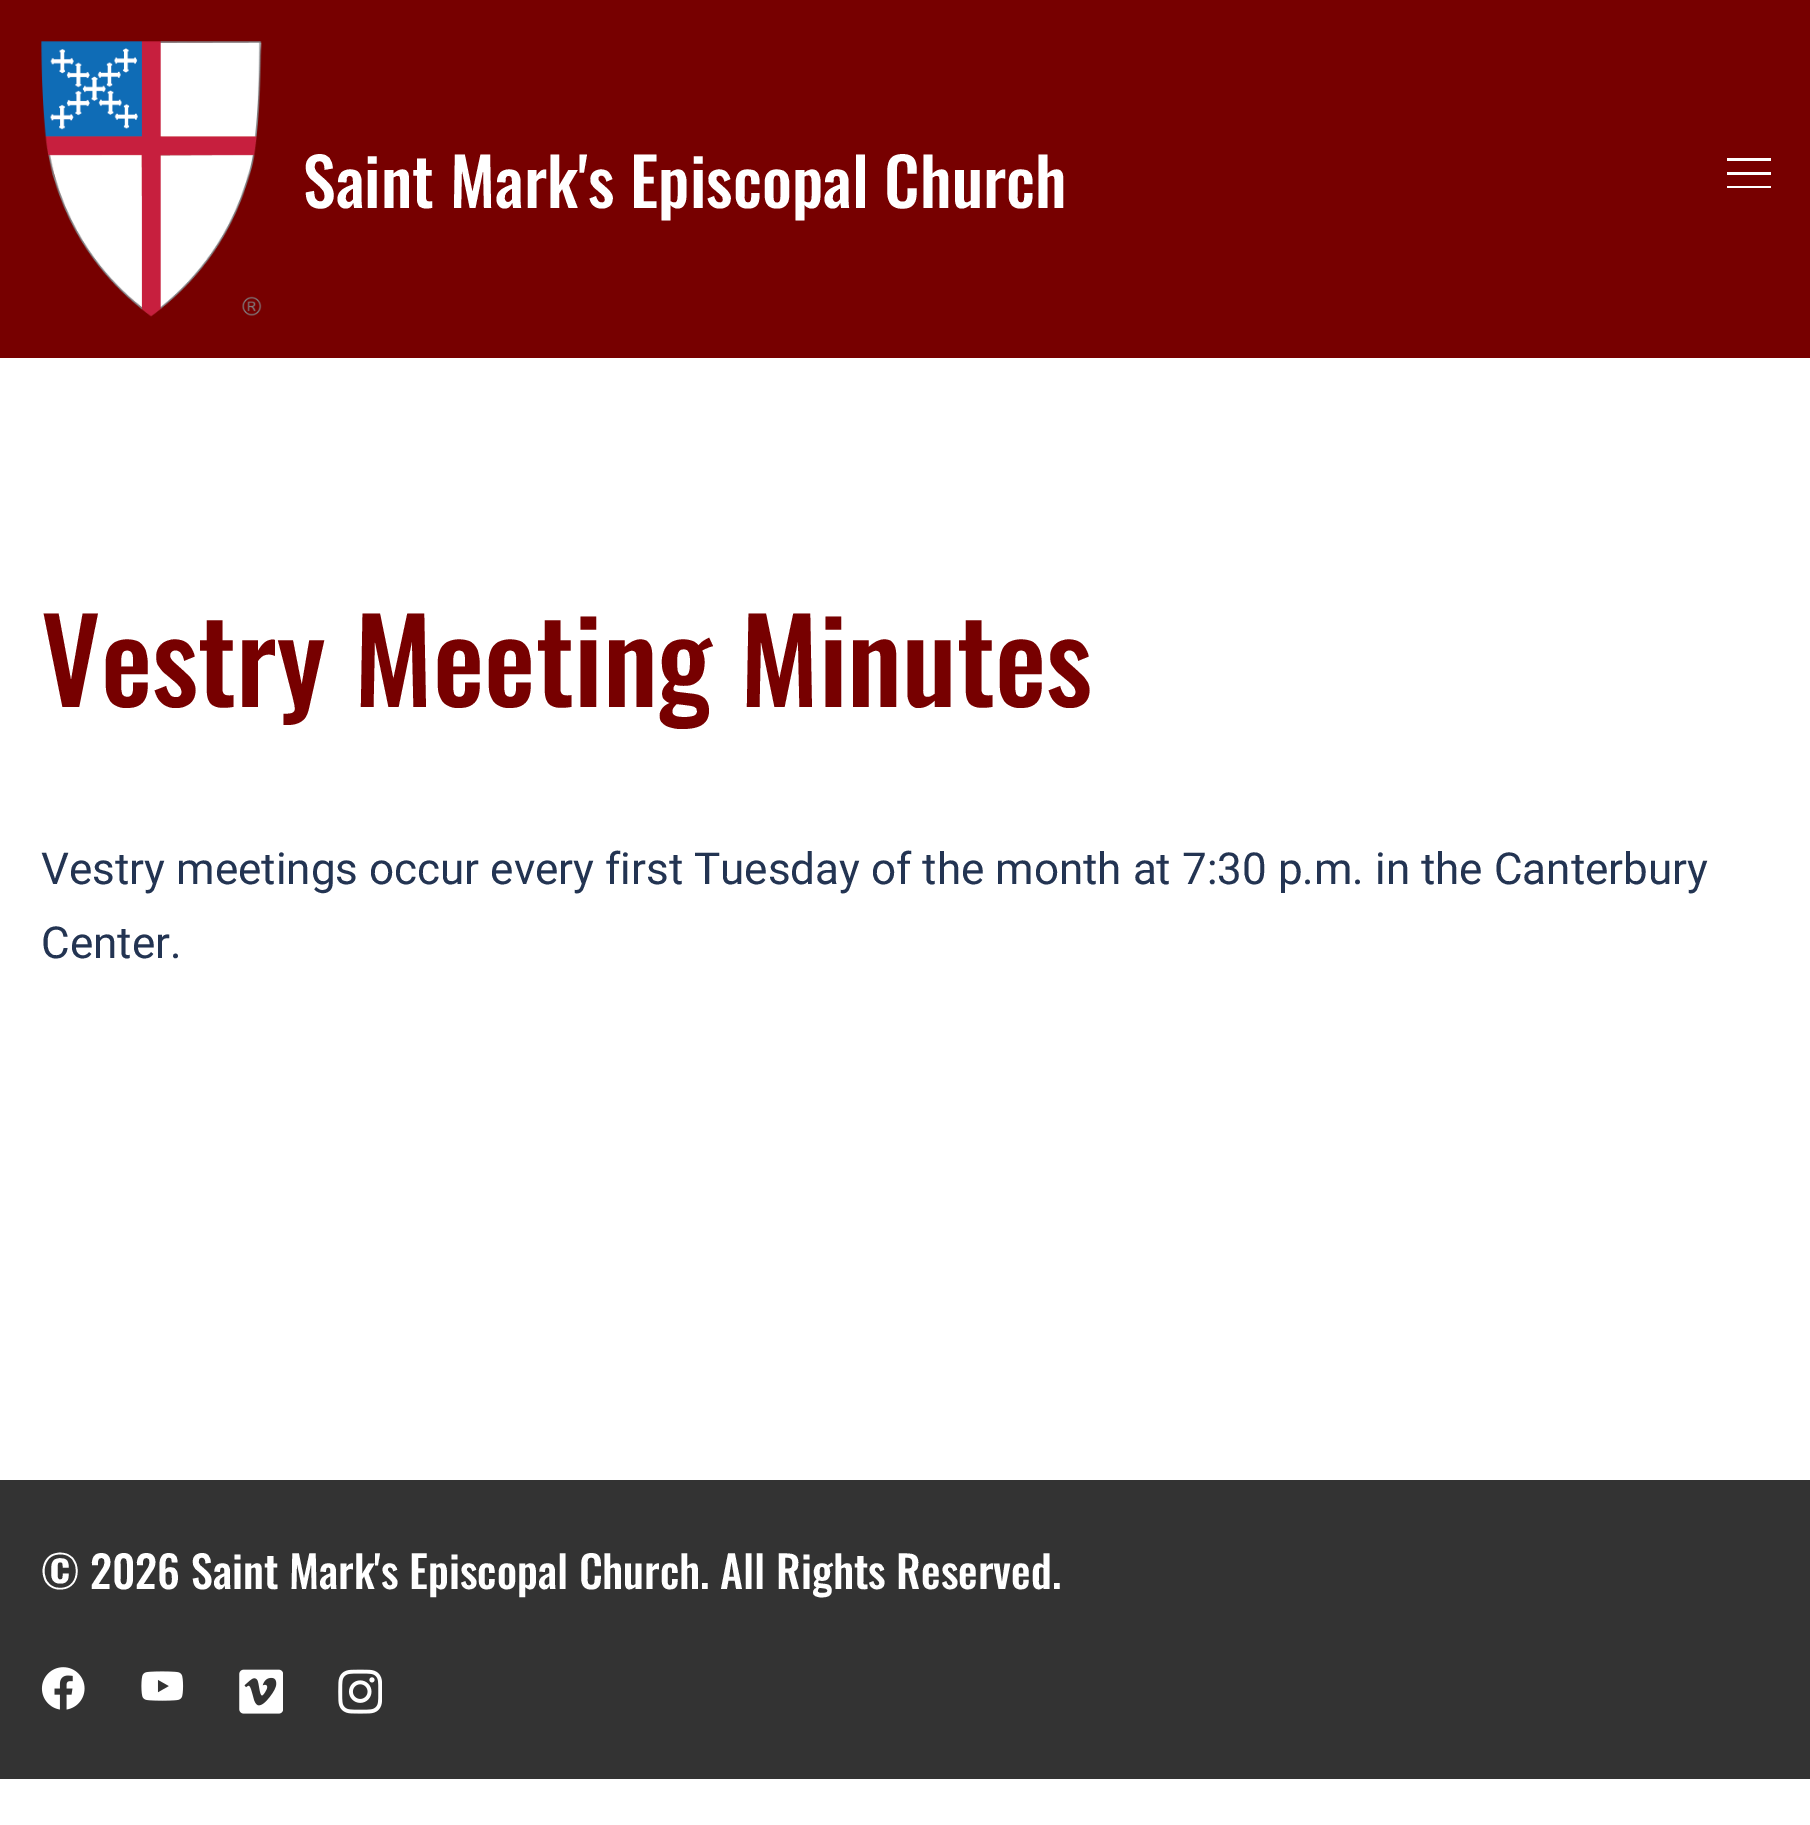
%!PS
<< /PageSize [1810 1825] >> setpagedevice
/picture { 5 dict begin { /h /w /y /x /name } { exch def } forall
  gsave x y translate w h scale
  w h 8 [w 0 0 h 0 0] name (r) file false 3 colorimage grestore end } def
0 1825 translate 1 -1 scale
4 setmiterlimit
1 setgray
0 0 1810 1825 rectfill
0.467 0 0 setrgbcolor
0 0 1810 358 rectfill
(img1.rgb) 41 41 221 276 picture
/Oswald-Medium [66 0 0 -66 0 0] selectfont
1 setgray
303 208 moveto (Saint Mark's Episcopal Church) show
1727 158 44 3 rectfill
1727 172 44 3 rectfill
1727 186 44 2 rectfill
/Oswald-Medium [115.5 0 0 -115.5 0 0] selectfont
0.467 0 0 setrgbcolor
41 707 moveto (Vestry Meeting Minutes) show
/Roboto-Regular [44 0 0 -44 0 0] selectfont
0.137 0.204 0.322 setrgbcolor
41 884 moveto (Vestry meetings occur every first Tuesday of the month at 7:30 p.m. in the Canterbury) show
41 958 moveto (Center.) show
0.2 setgray
0 1480 1810 299 rectfill
/Oswald-Medium [44 0 0 -44 0 0] selectfont
1 setgray
41 1589 moveto (© 2026 Saint Mark's Episcopal Church. All Rights Reserved.) show
(img2.rgb) 41 1667 44 43 picture
(img3.rgb) 141 1671 43 30 picture
(img4.rgb) 239 1669 44 45 picture
(img5.rgb) 338 1669 44 45 picture
showpage
